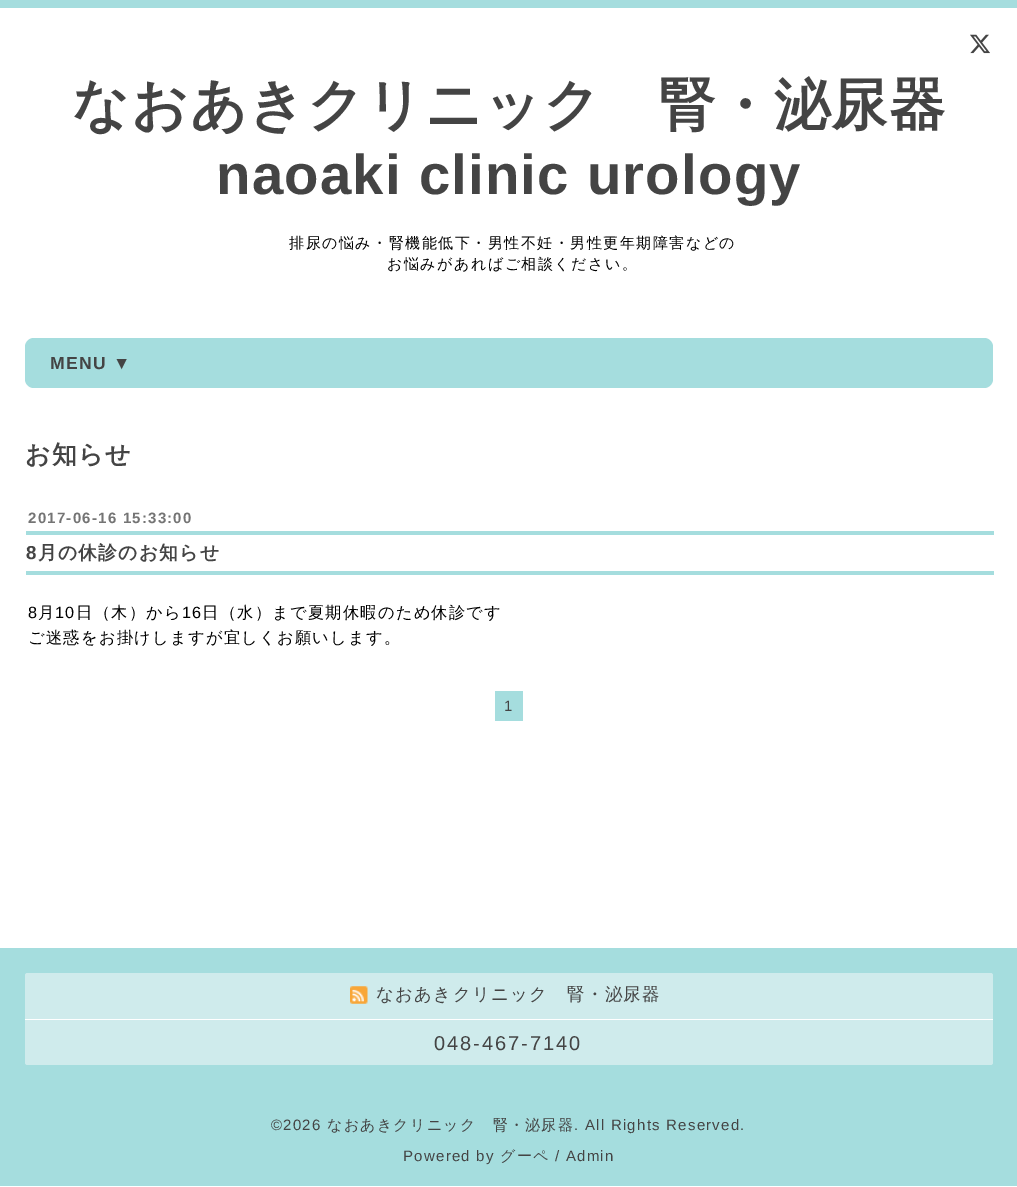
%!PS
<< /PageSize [1017 1187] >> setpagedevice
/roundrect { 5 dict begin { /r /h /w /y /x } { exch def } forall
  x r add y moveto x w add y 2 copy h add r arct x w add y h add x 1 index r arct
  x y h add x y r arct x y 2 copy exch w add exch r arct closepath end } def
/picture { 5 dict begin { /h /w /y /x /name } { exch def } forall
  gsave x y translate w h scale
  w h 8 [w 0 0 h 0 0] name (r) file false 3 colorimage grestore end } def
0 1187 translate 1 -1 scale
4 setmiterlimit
1 setgray
0 0 1017 1187 rectfill
0.647 0.867 0.871 setrgbcolor
0 0 1017 8 rectfill
(img1.rgb) 970 34 20 20 picture
/WenQuanYiZenHei-Bold [56.25 0 0 -56.25 0 0] selectfont
0.267 setgray
72 124 moveto 1.25 0 (なおあきクリニック　腎・泌尿器) ashow
/LiberationSans-Bold [56.25 0 0 -56.25 0 0] selectfont
216 194 moveto 1.25 0 (naoaki clinic urology) ashow
/WenQuanYiZenHei-Medium [15 0 0 -15 0 0] selectfont
0 setgray
289 248 moveto 1.5 0 (排尿の悩み・腎機能低下・男性不妊・男性更年期障害などの) ashow
387 269 moveto 1.5 0 (お悩みがあればご相談ください。) ashow
0.647 0.867 0.871 setrgbcolor
25 338 968 50 9 roundrect fill
/LiberationSans-Bold [17.5 0 0 -17.5 0 0] selectfont
0.267 setgray
50 369 moveto 1.25 0 (MENU ▼) ashow
/WenQuanYiZenHei-Bold [25 0 0 -25 0 0] selectfont
25 463 moveto 1.25 0 (お知らせ) ashow
/LiberationSans-Bold [15 0 0 -15 0 0] selectfont
0.455 setgray
28 523 moveto 1.25 0 (2017-06-16 15:33:00) ashow
0.647 0.867 0.871 setrgbcolor
26 531 968 4 rectfill
/LiberationSans-Bold [18.75 0 0 -18.75 0 0] selectfont
0.267 setgray
26 559 moveto 1.25 0 (8) ashow
/WenQuanYiZenHei-Bold [18.75 0 0 -18.75 0 0] selectfont
38 559 moveto 1.25 0 (月の休診のお知らせ) ashow
0.647 0.867 0.871 setrgbcolor
26 571 968 4 rectfill
/LiberationSans-Regular [16.25 0 0 -16.25 0 0] selectfont
0 setgray
28 618 moveto 1.25 0 (8) ashow
/WenQuanYiZenHei-Medium [16.25 0 0 -16.25 0 0] selectfont
38 618 moveto 1.25 0 (月) ashow
/LiberationSans-Regular [16.25 0 0 -16.25 0 0] selectfont
55 618 moveto 1.25 0 (10) ashow
/WenQuanYiZenHei-Medium [16.25 0 0 -16.25 0 0] selectfont
76 618 moveto 1.25 0 (日（木）から) ashow
/LiberationSans-Regular [16.25 0 0 -16.25 0 0] selectfont
182 618 moveto 1.25 0 (16) ashow
/WenQuanYiZenHei-Medium [16.25 0 0 -16.25 0 0] selectfont
202 618 moveto 1.25 0 (日（水）まで夏期休暇のため休診です) ashow
28 643 moveto 1.25 0 (ご迷惑をお掛けしますが宜しくお願いします。) ashow
0.647 0.867 0.871 setrgbcolor
495 691 28 30 rectfill
/LiberationSans-Regular [15 0 0 -15 0 0] selectfont
0.267 setgray
504 711 moveto 1.25 0 (1) ashow
0.647 0.867 0.871 setrgbcolor
0 948 1017 238 rectfill
0.812 0.922 0.925 setrgbcolor
25 973 968 92 2.5 roundrect fill
(img2.rgb) 350 986 18 18 picture
/WenQuanYiZenHei-Medium [17.5 0 0 -17.5 0 0] selectfont
0.267 setgray
376 1000 moveto 1.25 0 (なおあきクリニック　腎・泌尿器) ashow
1 setgray
25 1019 968 1 rectfill
/LiberationSans-Regular [20 0 0 -20 0 0] selectfont
0.267 setgray
434 1050 moveto 2 0 (048-467-7140) ashow
/LiberationSans-Regular [15 0 0 -15 0 0] selectfont
271 1130 moveto 1.25 0 (©2026) ashow
/WenQuanYiZenHei-Medium [15 0 0 -15 0 0] selectfont
327 1130 moveto 1.25 0 (なおあきクリニック　腎・泌尿器) ashow
/LiberationSans-Regular [15 0 0 -15 0 0] selectfont
574 1130 moveto 1.25 0 (. All Rights Reserved.) ashow
403 1161 moveto 1.25 0 (Powered by) ashow
/WenQuanYiZenHei-Medium [15 0 0 -15 0 0] selectfont
500 1161 moveto 1.25 0 (グーペ) ashow
/LiberationSans-Regular [15 0 0 -15 0 0] selectfont
555 1161 moveto 1.25 0 (/ Admin) ashow
showpage
